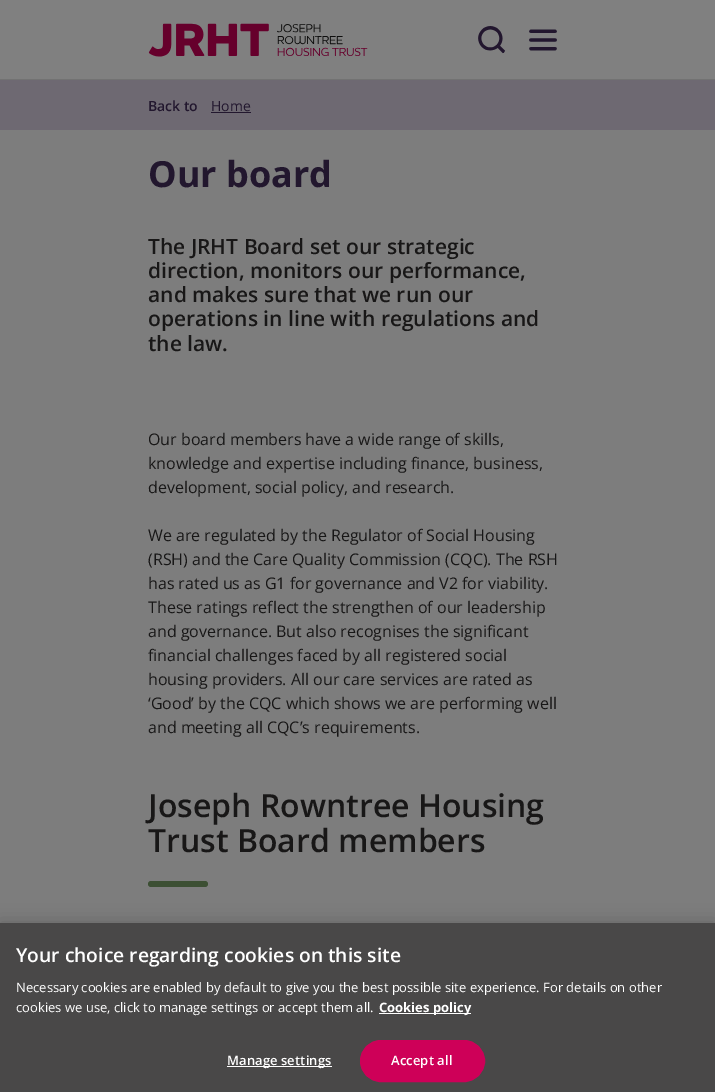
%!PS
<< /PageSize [715 1092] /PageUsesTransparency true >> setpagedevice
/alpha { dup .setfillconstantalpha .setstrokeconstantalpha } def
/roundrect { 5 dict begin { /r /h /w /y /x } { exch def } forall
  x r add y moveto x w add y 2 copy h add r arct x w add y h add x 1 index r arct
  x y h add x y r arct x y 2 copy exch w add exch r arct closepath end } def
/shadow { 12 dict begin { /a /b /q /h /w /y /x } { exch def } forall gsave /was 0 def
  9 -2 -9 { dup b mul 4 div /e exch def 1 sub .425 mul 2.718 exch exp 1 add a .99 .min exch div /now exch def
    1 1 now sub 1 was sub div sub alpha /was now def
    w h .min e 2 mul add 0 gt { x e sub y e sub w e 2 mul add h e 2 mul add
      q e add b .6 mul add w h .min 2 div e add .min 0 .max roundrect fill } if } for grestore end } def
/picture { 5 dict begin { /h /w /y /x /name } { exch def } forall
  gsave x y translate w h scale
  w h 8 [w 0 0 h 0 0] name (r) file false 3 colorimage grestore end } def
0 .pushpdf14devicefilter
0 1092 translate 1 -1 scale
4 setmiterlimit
0.49 setgray
0 0 715 1092 rectfill
0.502 setgray
0 0 715 79 rectfill
0.447 setgray
0 79 715 1 rectfill
(img1.rgb) 148 23 220 34 picture
(img2.rgb) 478 26 28 28 picture
(img3.rgb) 529 29 28 22 picture
0.431 0.412 0.447 setrgbcolor
0 80 715 50 rectfill
/OpenSans-SemiBold [14 0 0 -14 0 0] selectfont
0.133 0.09 0.18 setrgbcolor
148 111 moveto (Back to) show
/OpenSans-Regular [14 0 0 -14 0 0] selectfont
211 111 moveto (Home) show
211 112 40 1 rectfill
/OpenSans-Bold [36 0 0 -36 0 0] selectfont
148 187 moveto (Our board) show
/OpenSans-SemiBold [21 0 0 -21 0 0] selectfont
0.094 0.09 0.09 setrgbcolor
148 254 moveto (The JRHT Board set our strategic) show
148 278 moveto (direction, monitors our performance,) show
148 302 moveto (and makes sure that we run our) show
148 326 moveto (operations in line with regulations and) show
148 351 moveto (the law.) show
/OpenSans-Regular [16 0 0 -16 0 0] selectfont
148 445 moveto (Our board members have a wide range of skills,) show
148 469 moveto (knowledge and expertise including finance, business,) show
148 493 moveto (development, social policy, and research.) show
148 541 moveto (We are regulated by the Regulator of Social Housing) show
148 565 moveto (\(RSH\) and the Care Quality Commission \(CQC\). The RSH) show
148 589 moveto (has rated us as G1 for governance and V2 for viability.) show
148 613 moveto (These ratings reflect the strengthen of our leadership) show
148 637 moveto (and governance. But also recognises the significant) show
148 661 moveto (financial challenges faced by all registered social) show
148 685 moveto (housing providers. All our care services are rated as) show
148 709 moveto (‘Good’ by the CQC which shows we are performing well) show
148 733 moveto (and meeting all CQC’s requirements.) show
/OpenSans-SemiBold [32 0 0 -32 0 0] selectfont
148 817 moveto (Joseph Rowntree Housing) show
148 852 moveto (Trust Board members) show
0.235 0.31 0.2 setrgbcolor
148 881 60 6 3 roundrect fill
0 setgray
0 923 715 169 0 9 0.2 shadow
0.286 0.282 0.282 setrgbcolor
0 923 715 169 rectfill
/OpenSans-SemiBold [19.25 0 0 -19.25 0 0] selectfont
1 setgray
16 962 moveto (Your choice regarding cookies on this site) show
/OpenSans-Regular [13 0 0 -13 0 0] selectfont
16 992 moveto (Necessary cookies are enabled by default to give you the best possible site experience. For details on other) show
16 1012 moveto (cookies we use, click to manage settings or accept them all.) show
379 1013 92 1 rectfill
/OpenSans-Bold [13 0 0 -13 0 0] selectfont
379 1012 moveto (Cookies policy) show
227 1066 105 1 rectfill
/OpenSans-SemiBold [13 0 0 -13 0 0] selectfont
227 1065 moveto 0.1 0 (Manage settings) ashow
0.808 0 0.345 setrgbcolor
360.5 1040.5 124 41 20.5 roundrect gsave fill grestore
stroke
1 setgray
391 1065 moveto 0.1 0 (Accept all) ashow
.poppdf14devicefilter showpage
